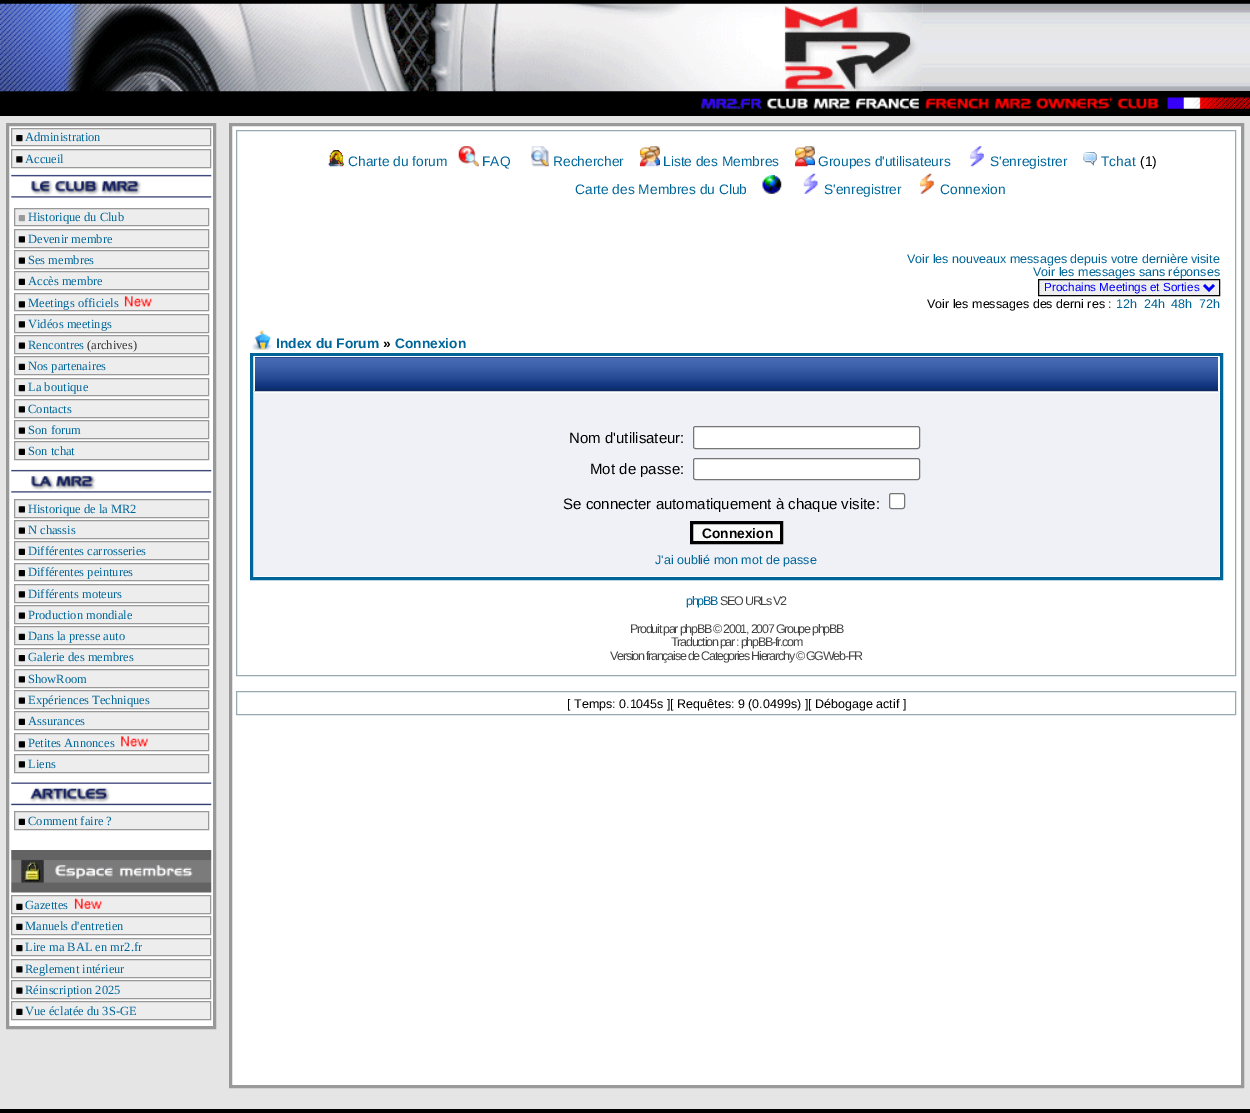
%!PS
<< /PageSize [1250 1113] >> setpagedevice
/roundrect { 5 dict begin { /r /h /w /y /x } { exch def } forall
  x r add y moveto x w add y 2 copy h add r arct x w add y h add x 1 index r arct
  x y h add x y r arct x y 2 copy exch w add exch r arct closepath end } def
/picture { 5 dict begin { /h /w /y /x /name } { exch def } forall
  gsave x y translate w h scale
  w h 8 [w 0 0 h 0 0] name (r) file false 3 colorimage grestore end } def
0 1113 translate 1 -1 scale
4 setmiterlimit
0.898 setgray
0 0 1250 1113 rectfill
0 setgray
0 0 1250 4 rectfill
(img2.rgb) 922 3 328 88 picture
0 91 1250 25 rectfill
(img1.rgb) 0 3 923 89 picture
(img3.rgb) 701 97 549 12 picture
1 setgray
newpath 7.5 124.5 moveto 214.5 124.5 lineto 214.5 1027.5 lineto 7.5 1027.5 lineto closepath gsave fill grestore
0.6 setgray
3 setlinewidth
stroke
0.929 setgray
newpath 11.5 128.5 moveto 210.5 128.5 lineto 210.5 145.5 lineto 11.5 145.5 lineto closepath gsave fill grestore
0.6 setgray
1 setlinewidth
stroke
(img4.rgb) 16 135 7 7 picture
/LiberationSerif-Regular [12.5 0 0 -12.5 0 0] selectfont
0 0.4 0.6 setrgbcolor
25 141 moveto (Administration) show
0.929 setgray
newpath 11.5 149.5 moveto 210.5 149.5 lineto 210.5 167.5 lineto 11.5 167.5 lineto closepath gsave fill grestore
0.6 setgray
stroke
(img5.rgb) 16 156 7 7 picture
0 0.4 0.6 setrgbcolor
25 163 moveto (Accueil) show
(img6.rgb) 11 174 201 24 picture
0.929 setgray
newpath 14.5 208.5 moveto 208.5 208.5 lineto 208.5 225.5 lineto 14.5 225.5 lineto closepath gsave fill grestore
0.6 setgray
stroke
(img7.rgb) 18 215 7 7 picture
0 0.4 0.6 setrgbcolor
28 221 moveto (Historique du Club) show
0.929 setgray
newpath 14.5 229.5 moveto 208.5 229.5 lineto 208.5 247.5 lineto 14.5 247.5 lineto closepath gsave fill grestore
0.6 setgray
stroke
(img8.rgb) 18 236 7 7 picture
0 0.4 0.6 setrgbcolor
28 243 moveto (Devenir membre) show
0.929 setgray
newpath 14.5 250.5 moveto 208.5 250.5 lineto 208.5 268.5 lineto 14.5 268.5 lineto closepath gsave fill grestore
0.6 setgray
stroke
(img9.rgb) 18 257 7 7 picture
0 0.4 0.6 setrgbcolor
28 264 moveto (Ses membres) show
0.929 setgray
newpath 14.5 271.5 moveto 208.5 271.5 lineto 208.5 289.5 lineto 14.5 289.5 lineto closepath gsave fill grestore
0.6 setgray
stroke
(img10.rgb) 18 278 7 7 picture
0 0.4 0.6 setrgbcolor
28 285 moveto (Accès membre) show
0.929 setgray
newpath 14.5 293.5 moveto 208.5 293.5 lineto 208.5 310.5 lineto 14.5 310.5 lineto closepath gsave fill grestore
0.6 setgray
stroke
(img8.rgb) 18 301 7 7 picture
0 0.4 0.6 setrgbcolor
28 307 moveto (Meetings officiels) show
(img11.rgb) 124 296 29 11 picture
0.929 setgray
newpath 14.5 314.5 moveto 208.5 314.5 lineto 208.5 332.5 lineto 14.5 332.5 lineto closepath gsave fill grestore
0.6 setgray
stroke
(img8.rgb) 18 321 7 7 picture
0 0.4 0.6 setrgbcolor
28 328 moveto (Vidéos meetings) show
0.929 setgray
newpath 14.5 335.5 moveto 208.5 335.5 lineto 208.5 353.5 lineto 14.5 353.5 lineto closepath gsave fill grestore
0.6 setgray
stroke
(img9.rgb) 18 342 7 7 picture
0 0.4 0.6 setrgbcolor
28 349 moveto (Rencontres) show
0.2 setgray
87 349 moveto (\(archives\)) show
0.929 setgray
newpath 14.5 356.5 moveto 208.5 356.5 lineto 208.5 374.5 lineto 14.5 374.5 lineto closepath gsave fill grestore
0.6 setgray
stroke
(img10.rgb) 18 363 7 7 picture
0 0.4 0.6 setrgbcolor
28 370 moveto (Nos partenaires) show
0.929 setgray
newpath 14.5 378.5 moveto 208.5 378.5 lineto 208.5 395.5 lineto 14.5 395.5 lineto closepath gsave fill grestore
0.6 setgray
stroke
(img12.rgb) 18 385 7 7 picture
0 0.4 0.6 setrgbcolor
28 391 moveto (La boutique) show
0.929 setgray
newpath 14.5 399.5 moveto 208.5 399.5 lineto 208.5 417.5 lineto 14.5 417.5 lineto closepath gsave fill grestore
0.6 setgray
stroke
(img8.rgb) 18 406 7 7 picture
0 0.4 0.6 setrgbcolor
28 413 moveto (Contacts) show
0.929 setgray
newpath 14.5 420.5 moveto 208.5 420.5 lineto 208.5 438.5 lineto 14.5 438.5 lineto closepath gsave fill grestore
0.6 setgray
stroke
(img9.rgb) 18 427 7 7 picture
0 0.4 0.6 setrgbcolor
28 434 moveto (Son forum) show
0.929 setgray
newpath 14.5 441.5 moveto 208.5 441.5 lineto 208.5 459.5 lineto 14.5 459.5 lineto closepath gsave fill grestore
0.6 setgray
stroke
(img10.rgb) 18 448 7 7 picture
0 0.4 0.6 setrgbcolor
28 455 moveto (Son tchat) show
(img13.rgb) 11 469 201 24 picture
0.929 setgray
newpath 14.5 499.5 moveto 208.5 499.5 lineto 208.5 517.5 lineto 14.5 517.5 lineto closepath gsave fill grestore
0.6 setgray
stroke
(img8.rgb) 18 506 7 7 picture
0 0.4 0.6 setrgbcolor
28 513 moveto (Historique de la MR2) show
0.929 setgray
newpath 14.5 520.5 moveto 208.5 520.5 lineto 208.5 538.5 lineto 14.5 538.5 lineto closepath gsave fill grestore
0.6 setgray
stroke
(img9.rgb) 18 527 7 7 picture
0 0.4 0.6 setrgbcolor
28 534 moveto (N chassis) show
0.929 setgray
newpath 14.5 541.5 moveto 208.5 541.5 lineto 208.5 559.5 lineto 14.5 559.5 lineto closepath gsave fill grestore
0.6 setgray
stroke
(img10.rgb) 18 548 7 7 picture
0 0.4 0.6 setrgbcolor
28 555 moveto (Différentes carrosseries) show
0.929 setgray
newpath 14.5 563.5 moveto 208.5 563.5 lineto 208.5 580.5 lineto 14.5 580.5 lineto closepath gsave fill grestore
0.6 setgray
stroke
(img12.rgb) 18 570 7 7 picture
0 0.4 0.6 setrgbcolor
28 576 moveto (Différentes peintures) show
0.929 setgray
newpath 14.5 584.5 moveto 208.5 584.5 lineto 208.5 602.5 lineto 14.5 602.5 lineto closepath gsave fill grestore
0.6 setgray
stroke
(img8.rgb) 18 591 7 7 picture
0 0.4 0.6 setrgbcolor
28 598 moveto (Différents moteurs) show
0.929 setgray
newpath 14.5 605.5 moveto 208.5 605.5 lineto 208.5 623.5 lineto 14.5 623.5 lineto closepath gsave fill grestore
0.6 setgray
stroke
(img9.rgb) 18 612 7 7 picture
0 0.4 0.6 setrgbcolor
28 619 moveto (Production mondiale) show
0.929 setgray
newpath 14.5 626.5 moveto 208.5 626.5 lineto 208.5 644.5 lineto 14.5 644.5 lineto closepath gsave fill grestore
0.6 setgray
stroke
(img10.rgb) 18 633 7 7 picture
0 0.4 0.6 setrgbcolor
28 640 moveto (Dans la presse auto) show
0.929 setgray
newpath 14.5 648.5 moveto 208.5 648.5 lineto 208.5 665.5 lineto 14.5 665.5 lineto closepath gsave fill grestore
0.6 setgray
stroke
(img12.rgb) 18 655 7 7 picture
0 0.4 0.6 setrgbcolor
28 661 moveto (Galerie des membres) show
0.929 setgray
newpath 14.5 669.5 moveto 208.5 669.5 lineto 208.5 687.5 lineto 14.5 687.5 lineto closepath gsave fill grestore
0.6 setgray
stroke
(img8.rgb) 18 676 7 7 picture
0 0.4 0.6 setrgbcolor
28 683 moveto (ShowRoom) show
0.929 setgray
newpath 14.5 690.5 moveto 208.5 690.5 lineto 208.5 708.5 lineto 14.5 708.5 lineto closepath gsave fill grestore
0.6 setgray
stroke
(img9.rgb) 18 697 7 7 picture
0 0.4 0.6 setrgbcolor
28 704 moveto (Expériences Techniques) show
0.929 setgray
newpath 14.5 711.5 moveto 208.5 711.5 lineto 208.5 729.5 lineto 14.5 729.5 lineto closepath gsave fill grestore
0.6 setgray
stroke
(img10.rgb) 18 718 7 7 picture
0 0.4 0.6 setrgbcolor
28 725 moveto (Assurances) show
0.929 setgray
newpath 14.5 733.5 moveto 208.5 733.5 lineto 208.5 750.5 lineto 14.5 750.5 lineto closepath gsave fill grestore
0.6 setgray
stroke
(img8.rgb) 18 741 7 7 picture
0 0.4 0.6 setrgbcolor
28 747 moveto (Petites Annonces) show
(img14.rgb) 121 736 28 11 picture
0.929 setgray
newpath 14.5 754.5 moveto 208.5 754.5 lineto 208.5 772.5 lineto 14.5 772.5 lineto closepath gsave fill grestore
0.6 setgray
stroke
(img8.rgb) 18 761 7 7 picture
0 0.4 0.6 setrgbcolor
28 768 moveto (Liens) show
(img15.rgb) 11 782 201 24 picture
0.929 setgray
newpath 14.5 811.5 moveto 208.5 811.5 lineto 208.5 829.5 lineto 14.5 829.5 lineto closepath gsave fill grestore
0.6 setgray
stroke
(img10.rgb) 18 818 7 7 picture
0 0.4 0.6 setrgbcolor
28 825 moveto (Comment faire ?) show
(img16.rgb) 11 850 201 43 picture
0.929 setgray
newpath 11.5 895.5 moveto 210.5 895.5 lineto 210.5 913.5 lineto 11.5 913.5 lineto closepath gsave fill grestore
0.6 setgray
stroke
(img17.rgb) 16 903 7 7 picture
0 0.4 0.6 setrgbcolor
25 909 moveto (Gazettes) show
(img18.rgb) 74 898 29 11 picture
0.929 setgray
newpath 11.5 916.5 moveto 210.5 916.5 lineto 210.5 934.5 lineto 11.5 934.5 lineto closepath gsave fill grestore
0.6 setgray
stroke
(img17.rgb) 16 923 7 7 picture
0 0.4 0.6 setrgbcolor
25 930 moveto (Manuels d'entretien) show
0.929 setgray
newpath 11.5 938.5 moveto 210.5 938.5 lineto 210.5 955.5 lineto 11.5 955.5 lineto closepath gsave fill grestore
0.6 setgray
stroke
(img4.rgb) 16 945 7 7 picture
0 0.4 0.6 setrgbcolor
25 951 moveto (Lire ma BAL en mr2.fr) show
0.929 setgray
newpath 11.5 959.5 moveto 210.5 959.5 lineto 210.5 977.5 lineto 11.5 977.5 lineto closepath gsave fill grestore
0.6 setgray
stroke
(img5.rgb) 16 966 7 7 picture
0 0.4 0.6 setrgbcolor
25 973 moveto (Reglement intérieur) show
0.929 setgray
newpath 11.5 980.5 moveto 210.5 980.5 lineto 210.5 998.5 lineto 11.5 998.5 lineto closepath gsave fill grestore
0.6 setgray
stroke
(img19.rgb) 16 987 7 7 picture
0 0.4 0.6 setrgbcolor
25 994 moveto (Réinscription 2025) show
0.929 setgray
newpath 11.5 1001.5 moveto 210.5 1001.5 lineto 210.5 1019.5 lineto 11.5 1019.5 lineto closepath gsave fill grestore
0.6 setgray
stroke
(img17.rgb) 16 1008 7 7 picture
0 0.4 0.6 setrgbcolor
25 1015 moveto (Vue éclatée du 3S-GE) show
1 setgray
newpath 230.5 124.5 moveto 1242.5 124.5 lineto 1242.5 1086.5 lineto 230.5 1086.5 lineto closepath gsave fill grestore
0.6 setgray
3 setlinewidth
stroke
0.596 0.667 0.694 setrgbcolor
1 setlinewidth
236.5 130.5 999 545 rectstroke
(img20.rgb) 328 150 16 17 picture
/LiberationSans-Regular [13.75 0 0 -13.75 0 0] selectfont
0 0.4 0.6 setrgbcolor
348 166 moveto (Charte du forum) show
(img21.rgb) 458 146 21 21 picture
482 166 moveto (FAQ) show
(img22.rgb) 531 146 18 21 picture
553 166 moveto (Rechercher) show
(img23.rgb) 640 146 20 21 picture
663 166 moveto (Liste des Membres) show
(img24.rgb) 795 146 20 21 picture
818 166 moveto (Groupes d'utilisateurs) show
(img25.rgb) 970 146 14 21 picture
990 166 moveto (S'enregistrer) show
(img26.rgb) 1083 152 14 14 picture
1101 166 moveto (Tchat) show
0 setgray
1140 166 moveto (\(1\)) show
0 0.4 0.6 setrgbcolor
575 194 moveto (Carte des Membres du Club) show
(img27.rgb) 762 175 20 19 picture
(img28.rgb) 803 173 15 21 picture
824 194 moveto (S'enregistrer) show
(img29.rgb) 919 173 15 21 picture
940 194 moveto (Connexion) show
/LiberationSans-Regular [12.5 0 0 -12.5 0 0] selectfont
907 263 moveto (Voir les nouveaux messages depuis votre dernière visite) show
1033 276 moveto (Voir les messages sans réponses) show
0.933 setgray
newpath 1038.5 279.5 moveto 1219.5 279.5 lineto 1219.5 295.5 lineto 1038.5 295.5 lineto closepath gsave fill grestore
0 setgray
stroke
0 0 1 setrgbcolor
2.5 setlinewidth
newpath 1204 285 moveto 1209 290 lineto 1214 285 lineto stroke
/LiberationSans-Regular [11.7 0 0 -11.7 0 0] selectfont
1044 291 moveto (Prochains Meetings et Sorties) show
/LiberationSans-Regular [12.5 0 0 -12.5 0 0] selectfont
0 setgray
927 308 moveto (Voir les messages des derni res :) show
0 0.4 0.6 setrgbcolor
1116 308 moveto (12h) show
1144 308 moveto (24h) show
1171 308 moveto (48h) show
1199 308 moveto (72h) show
(img30.rgb) 252 330 21 20 picture
/LiberationSans-Bold [13.75 0 0 -13.75 0 0] selectfont
276 348 moveto (Index du Forum) show
0 setgray
383 348 moveto (») show
0 0.4 0.6 setrgbcolor
395 348 moveto (Connexion) show
3 setlinewidth
251.5 354.5 970 224 rectstroke
(img31.rgb) 253 356 966 36 picture
1 setgray
254 356 965 1 rectfill
1218 356 1 35 rectfill
254 356 1 35 rectfill
0.941 0.941 0.969 setrgbcolor
254 393 965 183 rectfill
/LiberationSans-Regular [15 0 0 -15 0 0] selectfont
0 setgray
569 443 moveto (Nom d'utilisateur:) show
1 setgray
693.5 426.5 226 22 2 roundrect gsave fill grestore
0.463 setgray
1 setlinewidth
stroke
0 setgray
590 474 moveto (Mot de passe:) show
1 setgray
693.5 458.5 226 21 2 roundrect gsave fill grestore
0.463 setgray
stroke
0 setgray
563 509 moveto (Se connecter automatiquement à chaque visite:) show
1 setgray
889.5 493.5 15 15 2 roundrect gsave fill grestore
0.463 setgray
stroke
0.98 setgray
newpath 691.5 522.5 moveto 781.5 522.5 lineto 781.5 542.5 lineto 691.5 542.5 lineto closepath gsave fill grestore
0 setgray
3 setlinewidth
stroke
/LiberationSans-Bold [13.75 0 0 -13.75 0 0] selectfont
702 538 moveto (Connexion) show
/LiberationSans-Regular [12.5 0 0 -12.5 0 0] selectfont
0 0.4 0.6 setrgbcolor
655 564 moveto (J'ai oublié mon mot de passe) show
686 605 moveto -1.25 0 (phpBB) ashow
0.267 setgray
720 605 moveto -1.25 0 (SEO URLs V2) ashow
630 633 moveto -1.25 0 (Produit par phpBB © 2001, 2007 Groupe phpBB) ashow
671 646 moveto -1.25 0 (Traduction par : phpBB-fr.com) ashow
610 660 moveto -1.25 0 (Version française de Categories Hierarchy © GGWeb-FR) ashow
0.596 0.667 0.694 setrgbcolor
1 setlinewidth
236.5 691.5 999 23 rectstroke
0 setgray
567 708 moveto ([ Temps: 0.1045s ][ Requêtes: 9 \(0.0499s\) ][ Débogage actif ]) show
0 1109 1250 4 rectfill
showpage
